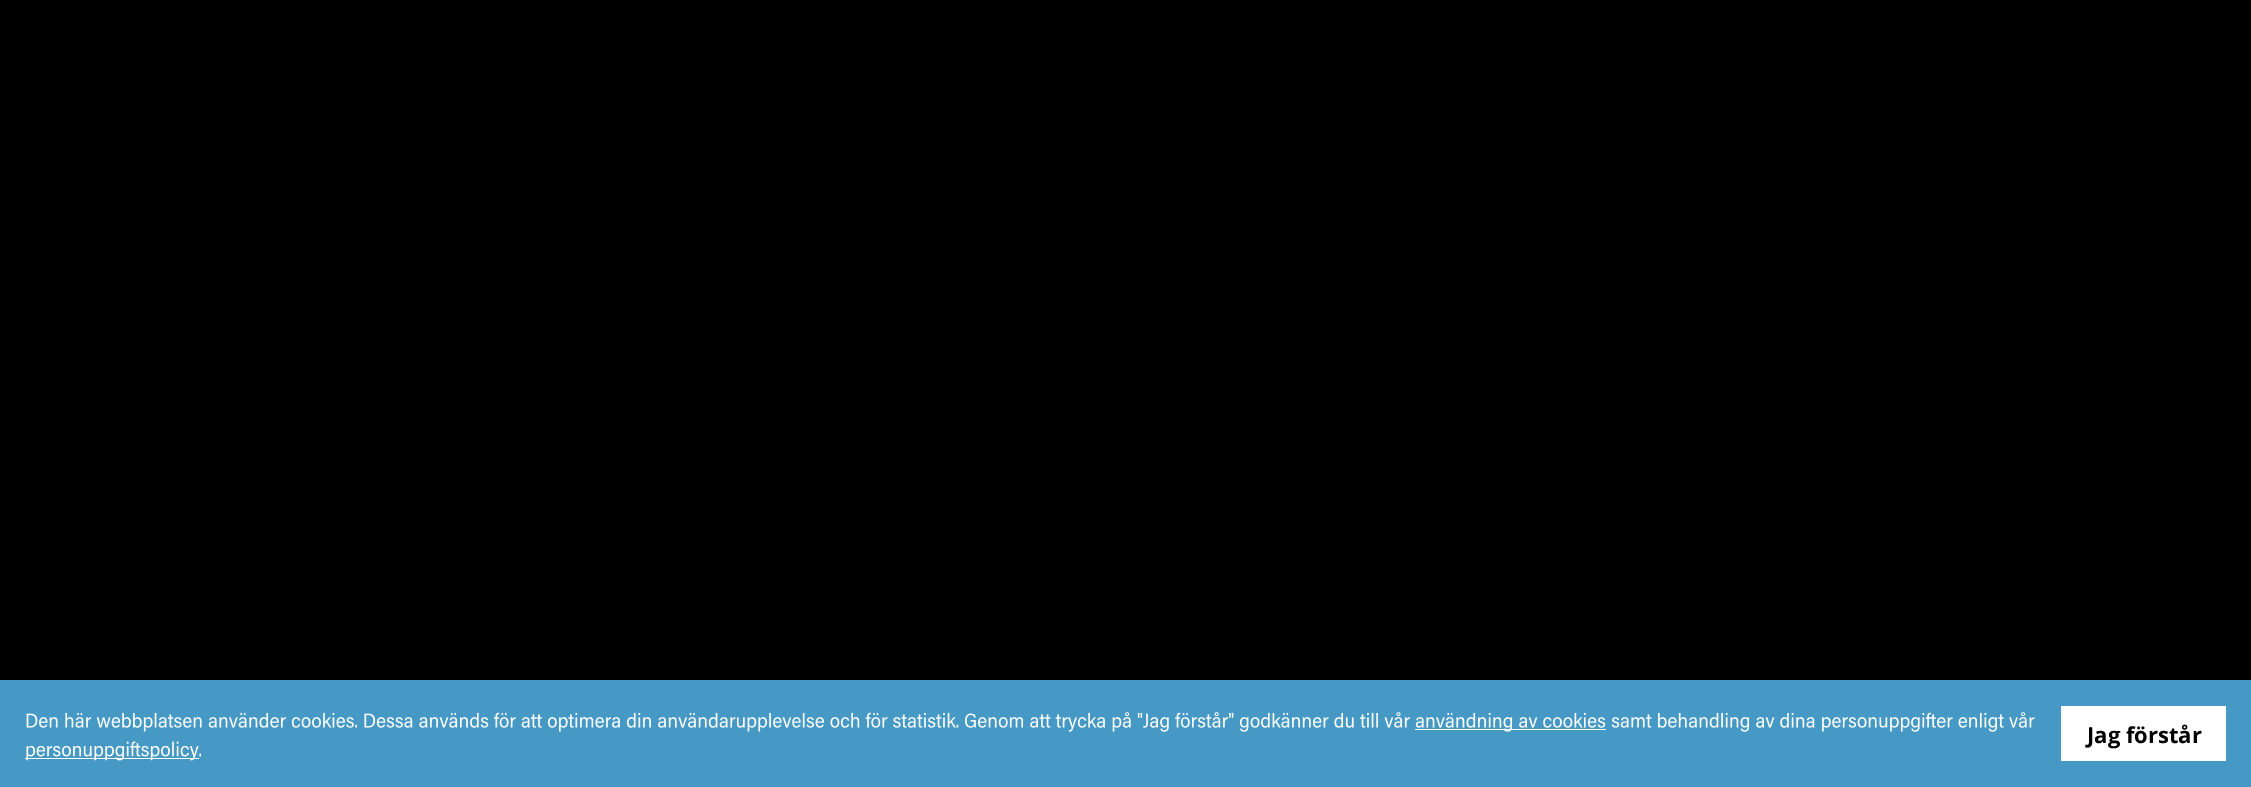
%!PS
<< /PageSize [2251 787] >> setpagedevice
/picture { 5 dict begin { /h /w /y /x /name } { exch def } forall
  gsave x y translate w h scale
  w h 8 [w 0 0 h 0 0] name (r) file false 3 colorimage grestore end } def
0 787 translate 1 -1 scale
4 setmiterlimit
0 setgray
0 0 2251 787 rectfill
0.275 0.6 0.773 setrgbcolor
0 680 2251 107 rectfill
(img1.rgb) 26 712 1384 20 picture
1 setgray
1415 729 191 1 rectfill
(img2.rgb) 1415 712 191 20 picture
(img3.rgb) 1611 712 424 20 picture
25 758 174 1 rectfill
(img4.rgb) 26 741 173 20 picture
newpath 199.5 756.5 moveto 199.5 753.5 lineto 201 753.5 lineto 201 756.5 lineto closepath fill
2061 706 165 55 rectfill
/OpenSans-Bold [22 0 0 -22 0 0] selectfont
0 setgray
2087 743 moveto (Jag förstår) show
showpage
